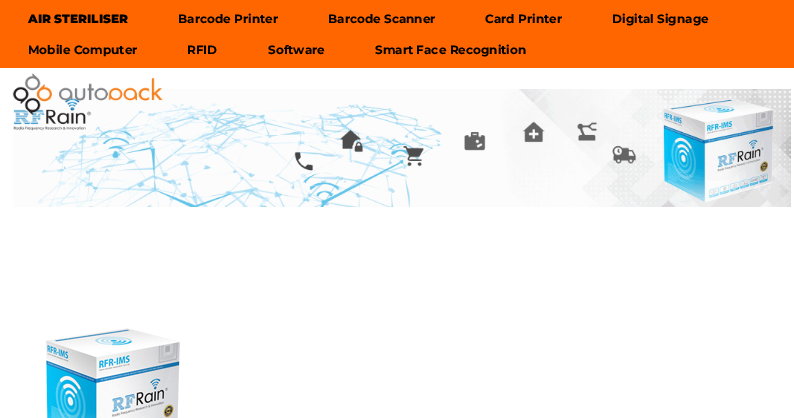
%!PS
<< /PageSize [794 418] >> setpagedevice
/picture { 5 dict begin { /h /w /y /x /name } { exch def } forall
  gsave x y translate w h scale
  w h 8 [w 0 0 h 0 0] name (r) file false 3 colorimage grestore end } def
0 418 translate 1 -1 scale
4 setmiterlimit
1 setgray
0 0 794 418 rectfill
1 0.4 0 setrgbcolor
0 0 794 68 rectfill
/Montserrat-Black [12 0 0 -12 0 0] selectfont
0 setgray
28 23 moveto (AIR STERILISER) show
/Montserrat-Bold [12 0 0 -12 0 0] selectfont
178 23 moveto (Barcode Printer) show
328 23 moveto (Barcode Scanner) show
485 23 moveto (Card Printer) show
612 23 moveto (Digital Signage) show
28 54 moveto (Mobile Computer) show
187 54 moveto (RFID) show
268 54 moveto (Software) show
375 54 moveto (Smart Face Recognition) show
(img2.rgb) 13 89 778 118 picture
(img1.rgb) 12 73 151 42 picture
(img3.rgb) 46 328 134 90 picture
showpage
